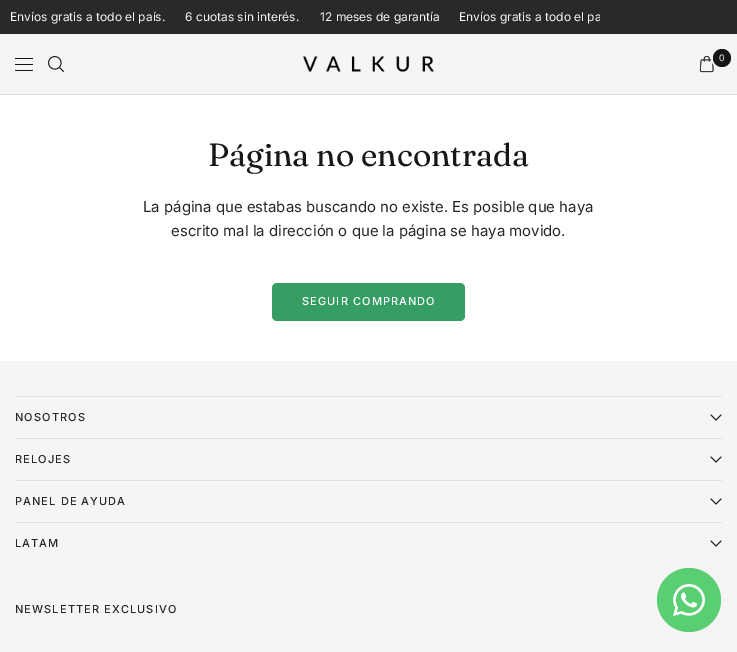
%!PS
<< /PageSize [737 652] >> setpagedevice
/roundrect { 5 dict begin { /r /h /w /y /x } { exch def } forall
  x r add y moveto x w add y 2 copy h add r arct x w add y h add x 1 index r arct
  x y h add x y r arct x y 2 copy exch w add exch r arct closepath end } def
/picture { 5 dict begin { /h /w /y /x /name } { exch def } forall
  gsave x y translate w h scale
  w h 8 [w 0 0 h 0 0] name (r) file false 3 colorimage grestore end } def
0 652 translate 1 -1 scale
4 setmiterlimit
1 setgray
0 0 737 652 rectfill
0.165 0.161 0.157 setrgbcolor
0 0 737 34 rectfill
/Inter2-Regular [12 0 0 -12 0 0] selectfont
0.961 setgray
10 21 moveto (Envíos gratis a todo el país.) show
185 21 moveto (6 cuotas sin interés.) show
320 21 moveto (12 meses de garantía) show
gsave
0 7 600 20 rectclip
459 21 moveto (Envíos gratis a todo el pa) show
grestore
0 34 737 60 rectfill
0.875 setgray
0 94 737 1 rectfill
0.082 setgray
15 58 18 1 0.5 roundrect fill
15 64 18 1 0.5 roundrect fill
15 70 18 1 0.5 roundrect fill
(img1.rgb) 48 56 16 16 picture
(img2.rgb) 303 56 131 16 picture
(img3.rgb) 699 55 15 18 picture
0.961 setgray
2 setlinewidth
newpath 722 58 10 0 360 arc closepath stroke
0.082 setgray
newpath 722 58 9 0 360 arc closepath fill
/Inter2-Regular [9 0 0 -9 0 0] selectfont
0.961 setgray
719 61 moveto (0) show
/Fraunces-Regular [32 0 0 -32 0 0] selectfont
0.09 setgray
208 166 moveto (Página no encontrada) show
/Inter-Regular [15 0 0 -15 0 0] selectfont
0.153 setgray
143 212 moveto (La página que estabas buscando no existe. Es posible que haya) show
171 236 moveto (escrito mal la dirección o que la página se haya movido.) show
0.212 0.616 0.396 setrgbcolor
272 283 193 38 5 roundrect fill
/Inter-Medium [11 0 0 -11 0 0] selectfont
1 setgray
302 305 moveto 1.1 0 (SEGUIR COMPRANDO) ashow
0.961 setgray
0 361 737 291 rectfill
0.878 setgray
15 396 707 1 rectfill
0.153 setgray
15 421 moveto 1.1 0 (NOSOTROS) ashow
0.878 setgray
15 438 707 1 rectfill
0.137 setgray
1 setlinewidth
1 setlinecap
1 setlinejoin
newpath 721 415 moveto 716 420 lineto 711 415 lineto 721 457 moveto 716 462 lineto 711 457 lineto stroke
0.153 setgray
15 463 moveto 1.1 0 (RELOJES) ashow
0.878 setgray
15 480 707 1 rectfill
0.153 setgray
15 505 moveto 1.1 0 (PANEL DE AYUDA) ashow
0.878 setgray
15 522 707 1 rectfill
0.137 setgray
newpath 721 499 moveto 716 504 lineto 711 499 lineto 721 541 moveto 716 546 lineto 711 541 lineto stroke
0.153 setgray
15 547 moveto 1.1 0 (LATAM) ashow
15 613 moveto 1.1 0 (NEWSLETTER EXCLUSIVO) ashow
0.349 0.808 0.447 setrgbcolor
newpath 689 600 32 0 360 arc closepath fill
(img4.rgb) 673 584 32 32 picture
showpage
